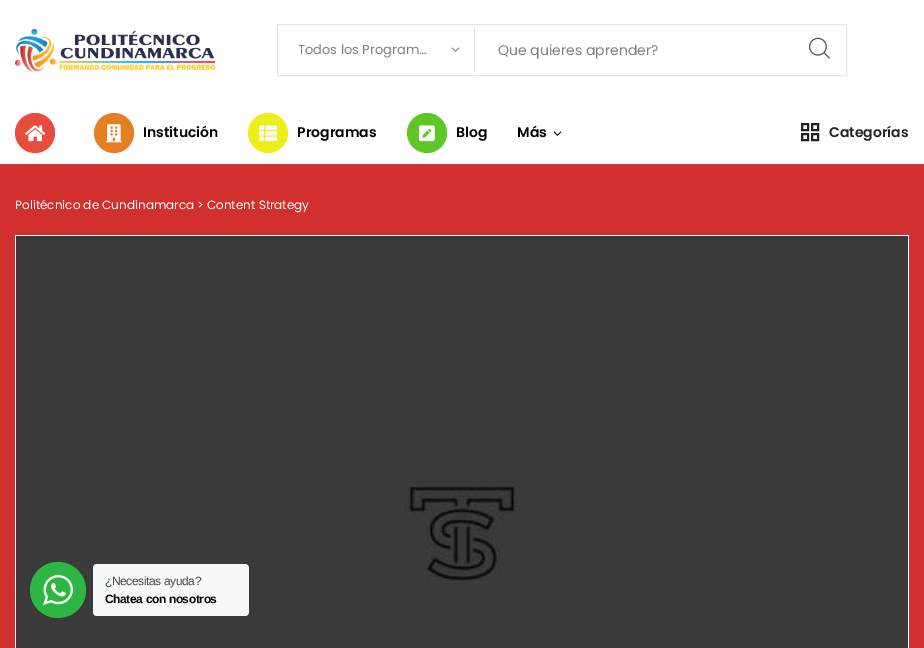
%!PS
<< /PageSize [924 648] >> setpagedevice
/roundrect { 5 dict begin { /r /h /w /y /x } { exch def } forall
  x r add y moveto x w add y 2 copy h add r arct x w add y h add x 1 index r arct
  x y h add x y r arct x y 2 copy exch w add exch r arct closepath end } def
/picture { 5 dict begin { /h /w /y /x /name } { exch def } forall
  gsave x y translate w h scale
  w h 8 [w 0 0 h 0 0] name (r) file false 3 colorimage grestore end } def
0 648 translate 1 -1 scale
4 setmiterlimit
1 setgray
0 0 924 648 rectfill
(img1.rgb) 15 29 200 43 picture
0.886 0.906 0.929 setrgbcolor
277.5 24.5 569 51 rectstroke
/Poppins-Regular [13 0 0 -13 0 0] selectfont
0.498 setgray
298 54 moveto (Todos los Program…) show
0.886 0.906 0.929 setrgbcolor
474 27 1 46 rectfill
(img2.rgb) 451 47 9 5 picture
/Poppins-Regular [14 0 0 -14 0 0] selectfont
0.498 setgray
498 55 moveto (Que quieres aprender?) show
(img3.rgb) 809 37 21 22 picture
0.906 0.298 0.235 setrgbcolor
newpath 35 133 20 0 360 arc closepath fill
(img4.rgb) 25 125 21 17 picture
0.902 0.494 0.133 setrgbcolor
newpath 114 133 20 0 360 arc closepath fill
(img5.rgb) 106 124 16 19 picture
/Poppins-SemiBold [14 0 0 -14 0 0] selectfont
0 setgray
143 137 moveto (Institución) show
0.929 0.929 0.09 setrgbcolor
newpath 268 133 20 0 360 arc closepath fill
(img6.rgb) 259 125 18 17 picture
0 setgray
297 137 moveto (Programas) show
0.369 0.776 0.145 setrgbcolor
newpath 427 133 20 0 360 arc closepath fill
(img7.rgb) 419 125 16 17 picture
0 setgray
456 137 moveto (Blog) show
517 137 moveto (Más) show
(img8.rgb) 553 131 9 5 picture
0.133 setgray
2 setlinewidth
802 124 6 6 rectstroke
812 124 6 6 rectstroke
802 134 6 6 rectstroke
812 134 6 6 rectstroke
829 137 moveto (Categorías) show
0.824 0.184 0.184 setrgbcolor
0 164 924 484 rectfill
/Poppins-Regular [12 0 0 -12 0 0] selectfont
1 setgray
15 209 moveto (Politécnico de Cundinamarca > Content Strategy) show
15 235 894 1 rectfill
908 235 1 413 rectfill
15 235 1 413 rectfill
(img9.rgb) 16 236 892 412 picture
0.176 0.718 0.259 setrgbcolor
newpath 58 590 28 0 360 arc closepath fill
(img10.rgb) 43 575 30 30 picture
0.961 0.969 0.976 setrgbcolor
93 564 156 52 4 roundrect fill
/LiberationSans-Regular [12 0 0 -12 0 0] selectfont
0.263 0.278 0.306 setrgbcolor
105 585 moveto -0.4 0 (¿Necesitas ayuda?) ashow
/LiberationSans-Bold [12 0 0 -12 0 0] selectfont
0 setgray
105 603 moveto -0.4 0 (Chatea con nosotros) ashow
showpage
